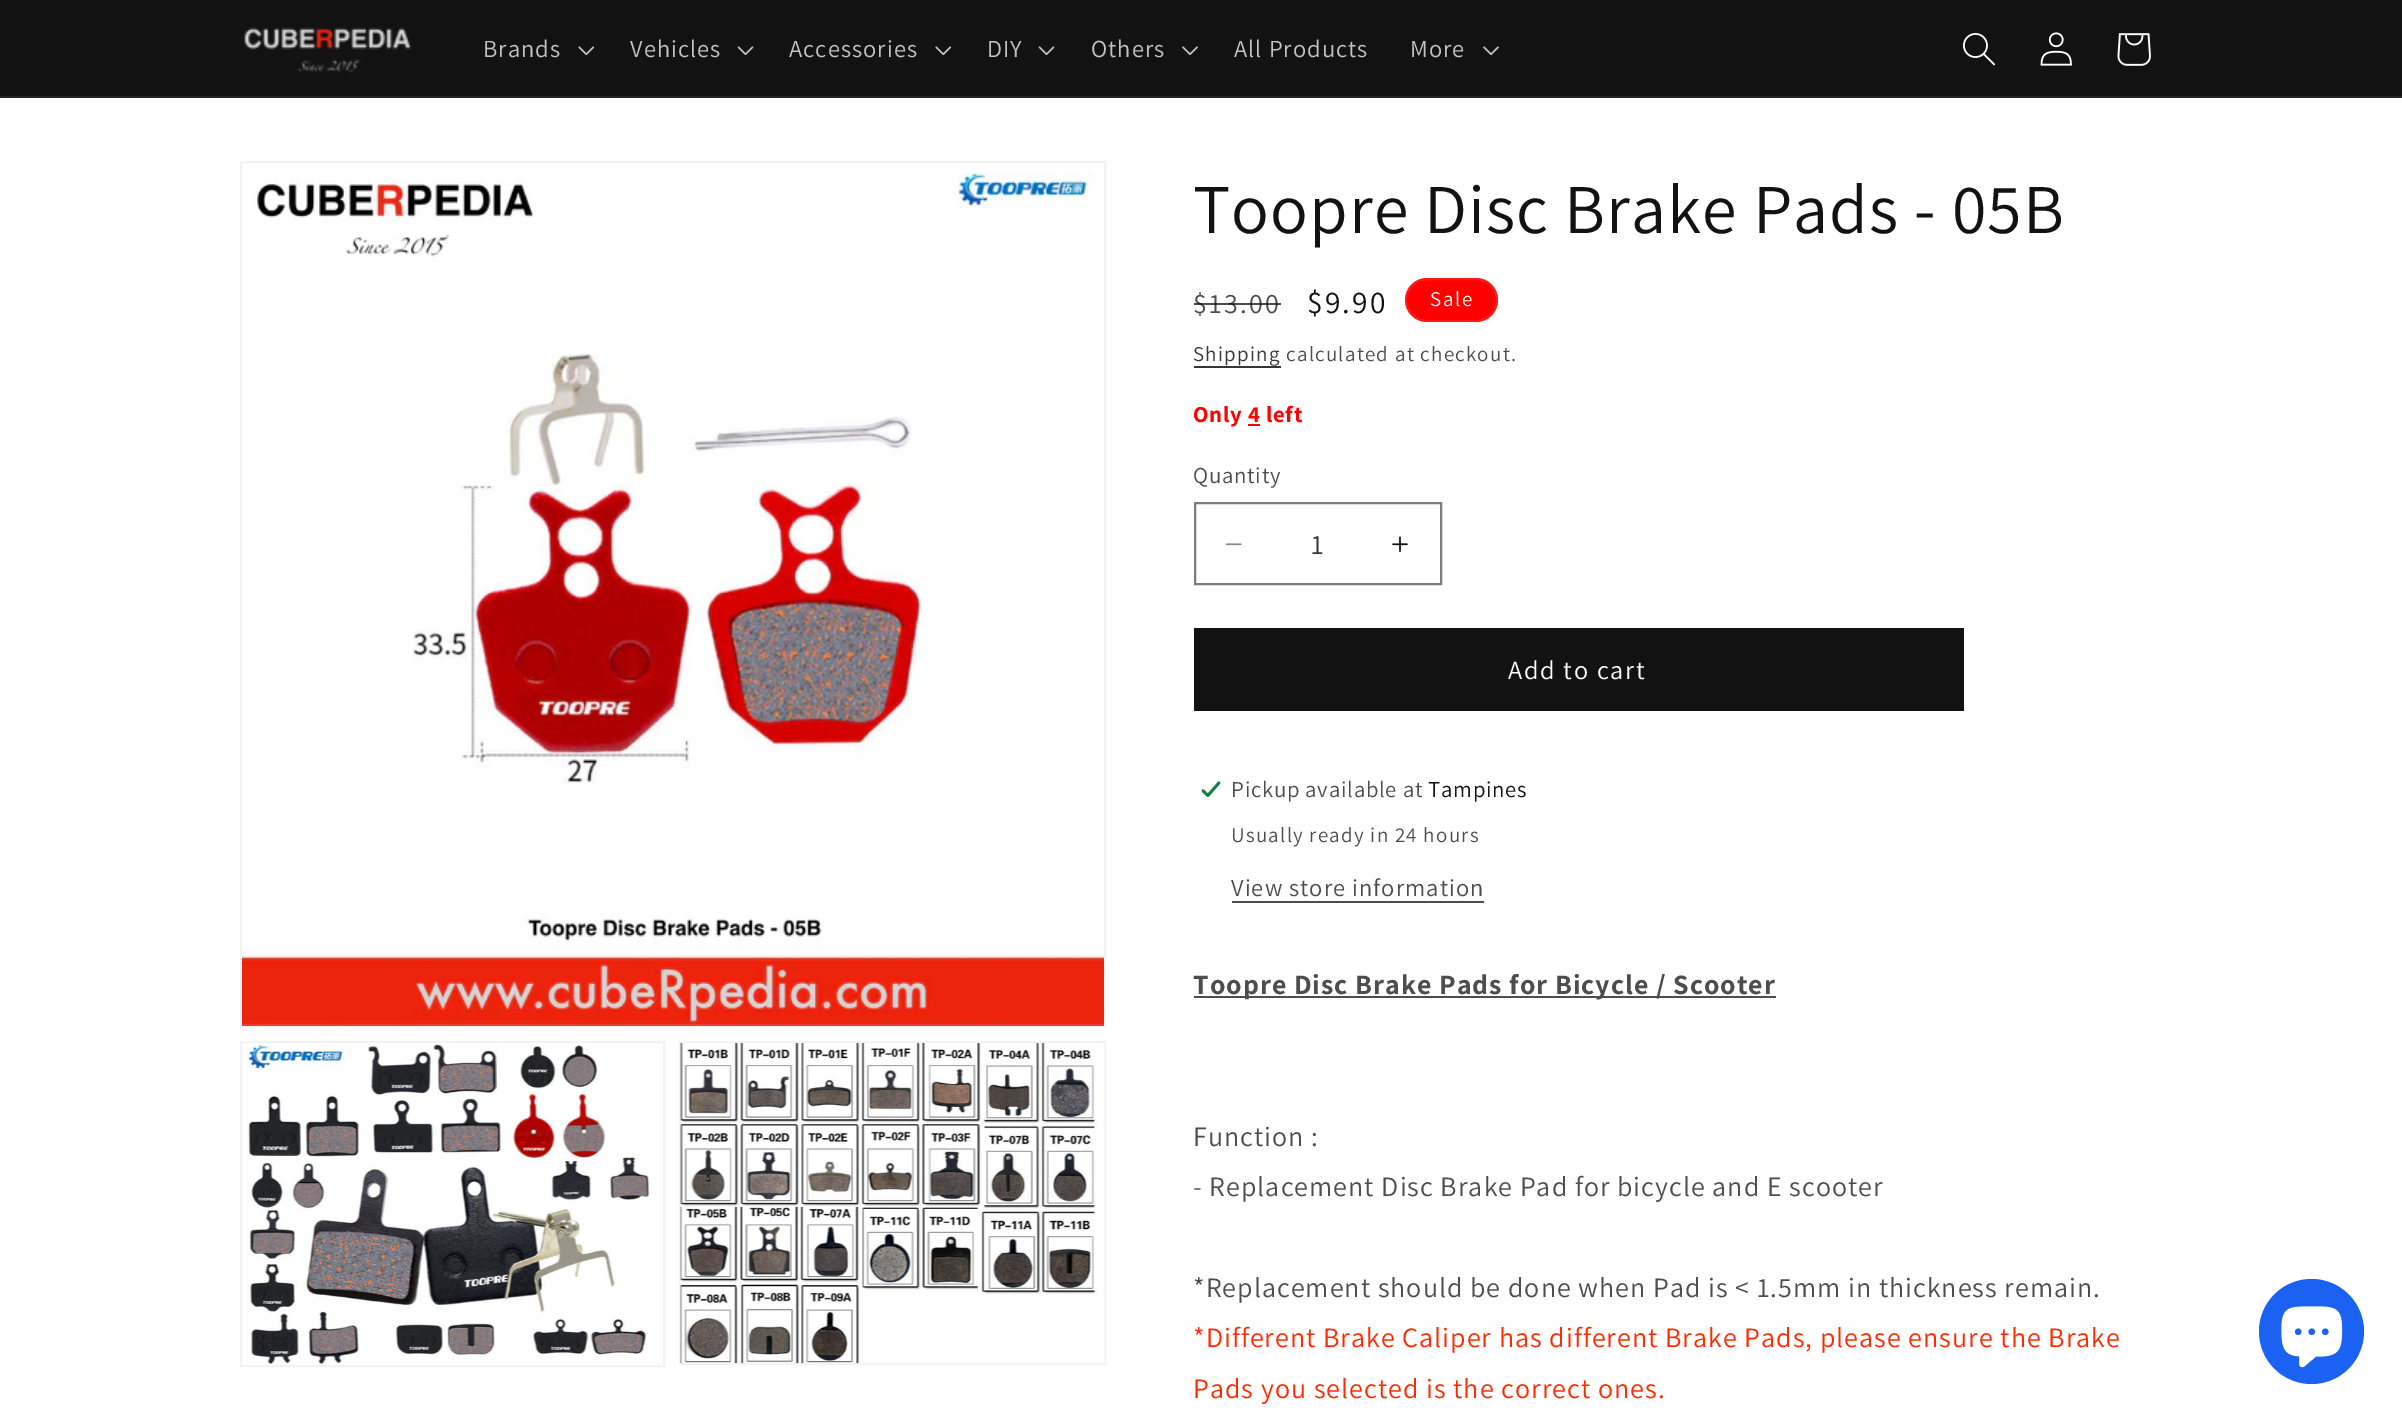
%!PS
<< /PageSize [2402 1421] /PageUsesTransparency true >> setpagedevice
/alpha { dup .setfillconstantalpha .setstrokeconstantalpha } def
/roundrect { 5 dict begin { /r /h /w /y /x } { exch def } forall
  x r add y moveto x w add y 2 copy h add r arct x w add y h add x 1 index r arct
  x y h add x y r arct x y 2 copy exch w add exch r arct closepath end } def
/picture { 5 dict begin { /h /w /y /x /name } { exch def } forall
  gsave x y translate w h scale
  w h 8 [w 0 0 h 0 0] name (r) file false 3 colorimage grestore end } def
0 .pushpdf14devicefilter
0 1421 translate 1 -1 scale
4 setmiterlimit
1 setgray
0 0 2402 1421 rectfill
0.071 setgray
0 0 2402 96 rectfill
0.145 setgray
0 96 2402 2 rectfill
(img1.rgb) 243 27 169 46 picture
/Assistant-Regular [24.5 0 0 -24.5 0 0] selectfont
0.769 setgray
483 57 moveto 1.05 0 (Brands) ashow
(img2.rgb) 578 46 17 10 picture
630 57 moveto 1.05 0 (Vehicles) ashow
(img3.rgb) 737 46 17 10 picture
789 57 moveto 1.05 0 (Accessories) ashow
(img2.rgb) 935 46 17 10 picture
987 57 moveto 1.05 0 (DIY) ashow
(img3.rgb) 1038 46 17 10 picture
1091 57 moveto 1.05 0 (Others) ashow
(img4.rgb) 1182 46 16 9 picture
1234 57 moveto 1.05 0 (All Products) ashow
1410 57 moveto 1.05 0 (More) ashow
(img4.rgb) 1483 46 16 9 picture
(img5.rgb) 1963 33 32 33 picture
(img6.rgb) 2040 32 32 34 picture
(img7.rgb) 2117 33 34 33 picture
0.953 setgray
2 setlinewidth
241 162 864 864 rectstroke
(img8.rgb) 242 172 862 854 picture
241 1042 423 324 rectstroke
(img9.rgb) 247 1043 403 322 picture
680 1042 425 322 rectstroke
(img10.rgb) 680 1043 425 321 picture
/Assistant-Regular [70 0 0 -70 0 0] selectfont
0.071 setgray
1193 233 moveto 1.05 0 (Toopre Disc Brake Pads - 05B) ashow
/Assistant-Regular [28 0 0 -28 0 0] selectfont
0.302 setgray
1193 313 moveto 2.25 0 ($13.00) ashow
0.75 alpha
0.071 setgray
1194 303 87 2 rectfill
/Assistant-Regular [31.5 0 0 -31.5 0 0] selectfont
1 alpha
1307 313 moveto 2.25 0 ($9.90) ashow
1 0 0 setrgbcolor
1405 278 93 44 22 roundrect fill
0.1 alpha
1 setgray
1406 279 91 42 21 roundrect stroke
/Assistant-Regular [21 0 0 -21 0 0] selectfont
1 alpha
1430 306 moveto 1.75 0 (Sale) ashow
0.212 setgray
1193 361 moveto 1.25 0 (Shipping) ashow
1194 366 87 2 rectfill
0.302 setgray
1286 361 moveto 1.25 0 (calculated at checkout.) ashow
/Assistant-Bold [22.75 0 0 -22.75 0 0] selectfont
1 0 0 setrgbcolor
1193 422 moveto 0.75 0 (Only 4 left) ashow
1248 424 12 2 rectfill
/Assistant-Regular [22.75 0 0 -22.75 0 0] selectfont
0.302 setgray
1193 483 moveto 0.75 0 (Quantity) ashow
(img11.rgb) 1226 543 16 3 picture
(img12.rgb) 1392 536 16 17 picture
0.49 setgray
1195 503 246 81 rectstroke
/Assistant-Regular [28 0 0 -28 0 0] selectfont
0.212 setgray
1311 554 moveto (1) show
0.071 setgray
1194 628 770 83 rectfill
/Assistant-Regular [26.25 0 0 -26.25 0 0] selectfont
1 setgray
1508 679 moveto 1.75 0 (Add to cart) ashow
(img13.rgb) 1201 781 20 17 picture
/Assistant-Regular [22.75 0 0 -22.75 0 0] selectfont
0.302 setgray
1231 797 moveto 0.75 0 (Pickup available at) ashow
0.071 setgray
1428 797 moveto 0.75 0 (Tampines) ashow
/Assistant-Regular [21 0 0 -21 0 0] selectfont
0.302 setgray
1231 842 moveto 1.25 0 (Usually ready in 24 hours) ashow
/Assistant-Regular [24.5 0 0 -24.5 0 0] selectfont
1231 896 moveto 1.05 0 (View store information) ashow
1232 901 252 2 rectfill
1194 996 582 2 rectfill
/Assistant-Bold [28 0 0 -28 0 0] selectfont
1193 994 moveto 1.05 0 (Toopre Disc Brake Pads for Bicycle / Scooter) ashow
/Assistant-Regular [28 0 0 -28 0 0] selectfont
1193 1146 moveto 1.05 0 (Function :) ashow
1193 1196 moveto 1.05 0 (- Replacement Disc Brake Pad for bicycle and E scooter) ashow
1193 1297 moveto 1.05 0 (*Replacement should be done when Pad is < 1.5mm in thickness remain.) ashow
1 0.165 0 setrgbcolor
1193 1347 moveto 1.05 0 (*Different Brake Caliper has different Brake Pads, please ensure the Brake) ashow
1193 1398 moveto 1.05 0 (Pads you selected is the correct ones.) ashow
0.106 0.38 0.949 setrgbcolor
newpath 2311.5 1331.5 52.5 0 360 arc closepath fill
(img14.rgb) 2281 1306 62 62 picture
.poppdf14devicefilter showpage
